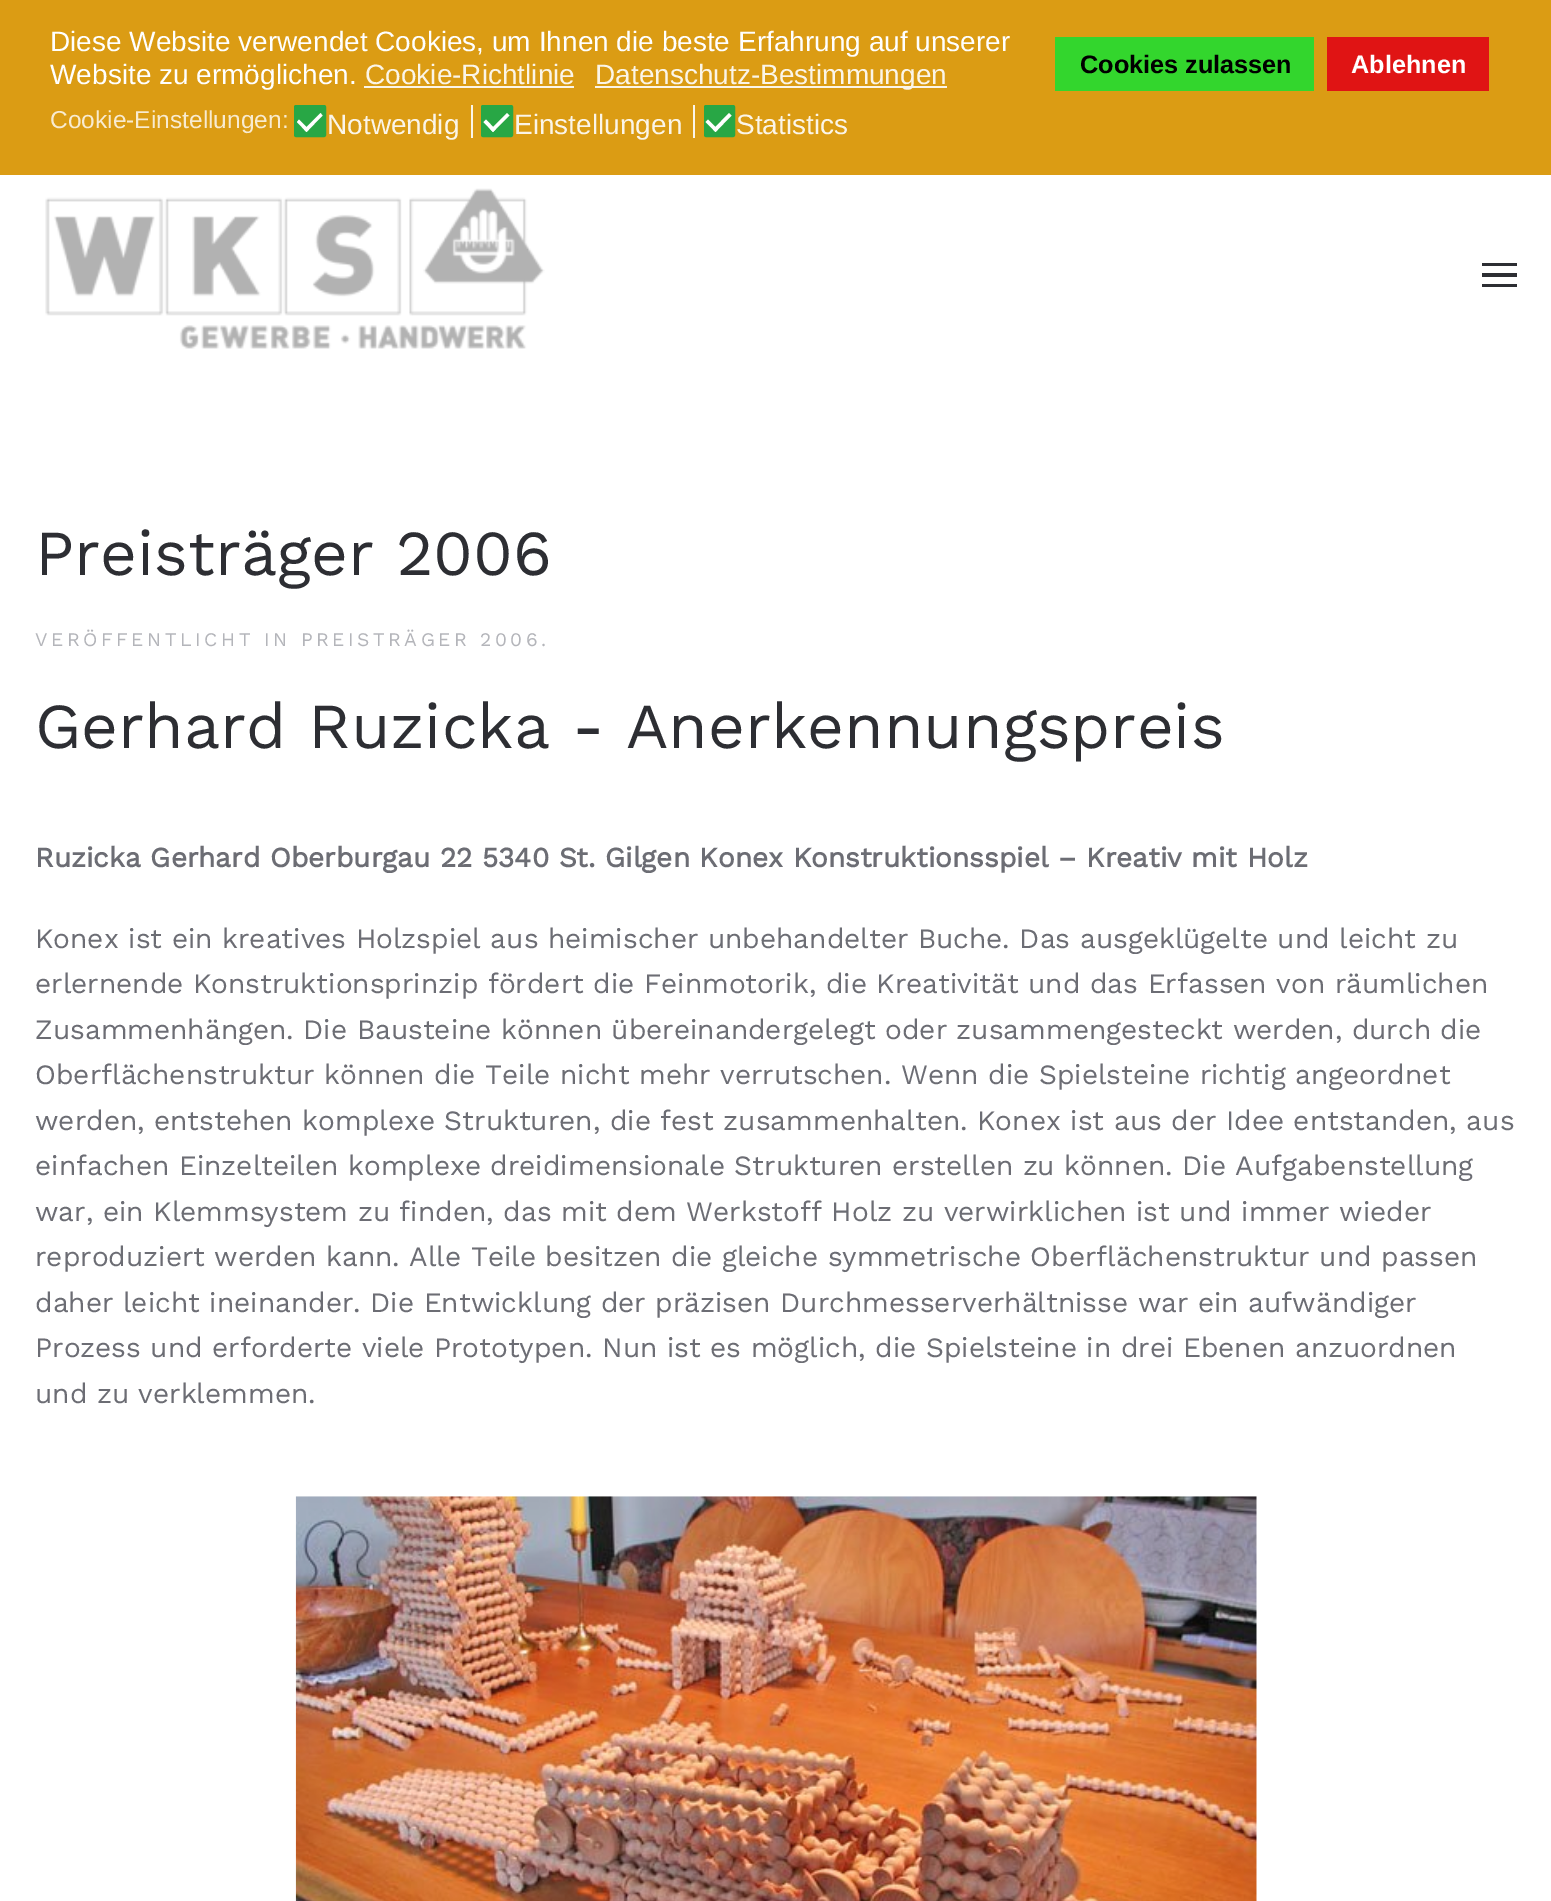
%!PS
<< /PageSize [1551 1901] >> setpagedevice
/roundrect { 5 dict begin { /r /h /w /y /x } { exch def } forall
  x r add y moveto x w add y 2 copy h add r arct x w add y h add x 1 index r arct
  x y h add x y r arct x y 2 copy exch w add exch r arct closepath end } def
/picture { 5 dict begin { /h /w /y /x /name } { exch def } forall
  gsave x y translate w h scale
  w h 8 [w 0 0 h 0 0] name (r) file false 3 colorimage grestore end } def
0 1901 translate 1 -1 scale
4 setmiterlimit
1 setgray
0 0 1551 1901 rectfill
0.859 0.612 0.078 setrgbcolor
0 0 1551 175 rectfill
/LiberationSans-Regular [28 0 0 -28 0 0] selectfont
1 setgray
50 51 moveto (Diese Website verwendet Cookies, um Ihnen die beste Erfahrung auf unserer) show
50 84 moveto (Website zu ermöglichen.) show
0.984 0.961 0.91 setrgbcolor
365 84 moveto (Cookie-Richtlinie) show
364 86 210 2 rectfill
595 86 352 2 rectfill
595 84 moveto (Datenschutz-Bestimmungen) show
0.2 0.839 0.176 setrgbcolor
1055 37 259 54 rectfill
/LiberationSans-Bold [25.25 0 0 -25.25 0 0] selectfont
0 setgray
1080 73 moveto (Cookies zulassen) show
0.878 0.078 0.078 setrgbcolor
1327 37 162 54 rectfill
1 setgray
1351 73 moveto (Ablehnen) show
/LiberationSans-Regular [24.5 0 0 -24.5 0 0] selectfont
0.973 0.922 0.816 setrgbcolor
50 128 moveto (Cookie-Einstellungen:) show
0.157 0.655 0.271 setrgbcolor
295 106 30 30 1 roundrect gsave fill grestore
2 setlinewidth
stroke
1 setgray
newpath 320.5 113 moveto 322.5 115.5 lineto 306.5 132 lineto 304 129.5 lineto closepath fill
newpath 299 119.5 moveto 309 129.5 lineto 306.5 132 lineto 297 122 lineto closepath fill
0.984 0.961 0.91 setrgbcolor
471 105 2 33 rectfill
/LiberationSans-Regular [28 0 0 -28 0 0] selectfont
327 134 moveto (Notwendig) show
0.157 0.655 0.271 setrgbcolor
482 106 30 30 1 roundrect gsave fill grestore
stroke
1 setgray
newpath 507 113 moveto 509.5 115.5 lineto 493 132 lineto 490.5 129.5 lineto closepath fill
newpath 486 119.5 moveto 495.5 129.5 lineto 493 132 lineto 483.5 122 lineto closepath fill
0.984 0.961 0.91 setrgbcolor
693 105 2 33 rectfill
514 134 moveto (Einstellungen) show
0.157 0.655 0.271 setrgbcolor
705 106 29 30 1 roundrect gsave fill grestore
stroke
1 setgray
newpath 729 113 moveto 731.5 115.5 lineto 715.5 132 lineto 713 129.5 lineto closepath fill
newpath 708 119.5 moveto 718 129.5 lineto 715.5 132 lineto 705.5 122 lineto closepath fill
0.984 0.961 0.91 setrgbcolor
736 134 moveto (Statistics) show
(img1.rgb) 45 188 500 161 picture
0.176 0.18 0.2 setrgbcolor
1482 263 35 3 rectfill
1482 273 35 4 rectfill
1482 284 35 3 rectfill
/WorkSans-Regular [64 0 0 -64 0 0] selectfont
35 575 moveto (Preisträger 2006) show
/WorkSans-Regular [19.25 0 0 -19.25 0 0] selectfont
0.706 0.71 0.729 setrgbcolor
35 646 moveto 3.5 0 (VERÖFFENTLICHT IN PREISTRÄGER 2006.) ashow
/WorkSans-Regular [64 0 0 -64 0 0] selectfont
0.176 0.18 0.2 setrgbcolor
35 748 moveto (Gerhard Ruzicka - Anerkennungspreis) show
/WorkSans-Bold [28 0 0 -28 0 0] selectfont
0.424 0.427 0.455 setrgbcolor
35 867 moveto (Ruzicka Gerhard Oberburgau 22 5340 St. Gilgen Konex Konstruktionsspiel – Kreativ mit Holz) show
/WorkSans-Regular [28 0 0 -28 0 0] selectfont
35 948 moveto (Konex ist ein kreatives Holzspiel aus heimischer unbehandelter Buche. Das ausgeklügelte und leicht zu) show
35 993 moveto (erlernende Konstruktionsprinzip fördert die Feinmotorik, die Kreativität und das Erfassen von räumlichen) show
35 1039 moveto (Zusammenhängen. Die Bausteine können übereinandergelegt oder zusammengesteckt werden, durch die) show
35 1084 moveto (Oberflächenstruktur können die Teile nicht mehr verrutschen. Wenn die Spielsteine richtig angeordnet) show
35 1130 moveto (werden, entstehen komplexe Strukturen, die fest zusammenhalten. Konex ist aus der Idee entstanden, aus) show
35 1175 moveto (einfachen Einzelteilen komplexe dreidimensionale Strukturen erstellen zu können. Die Aufgabenstellung) show
35 1221 moveto (war, ein Klemmsystem zu finden, das mit dem Werkstoff Holz zu verwirklichen ist und immer wieder) show
35 1266 moveto (reproduziert werden kann. Alle Teile besitzen die gleiche symmetrische Oberflächenstruktur und passen) show
35 1312 moveto (daher leicht ineinander. Die Entwicklung der präzisen Durchmesserverhältnisse war ein aufwändiger) show
35 1357 moveto (Prozess und erforderte viele Prototypen. Nun ist es möglich, die Spielsteine in drei Ebenen anzuordnen) show
35 1403 moveto (und zu verklemmen.) show
(img2.rgb) 295 1496 962 405 picture
showpage
